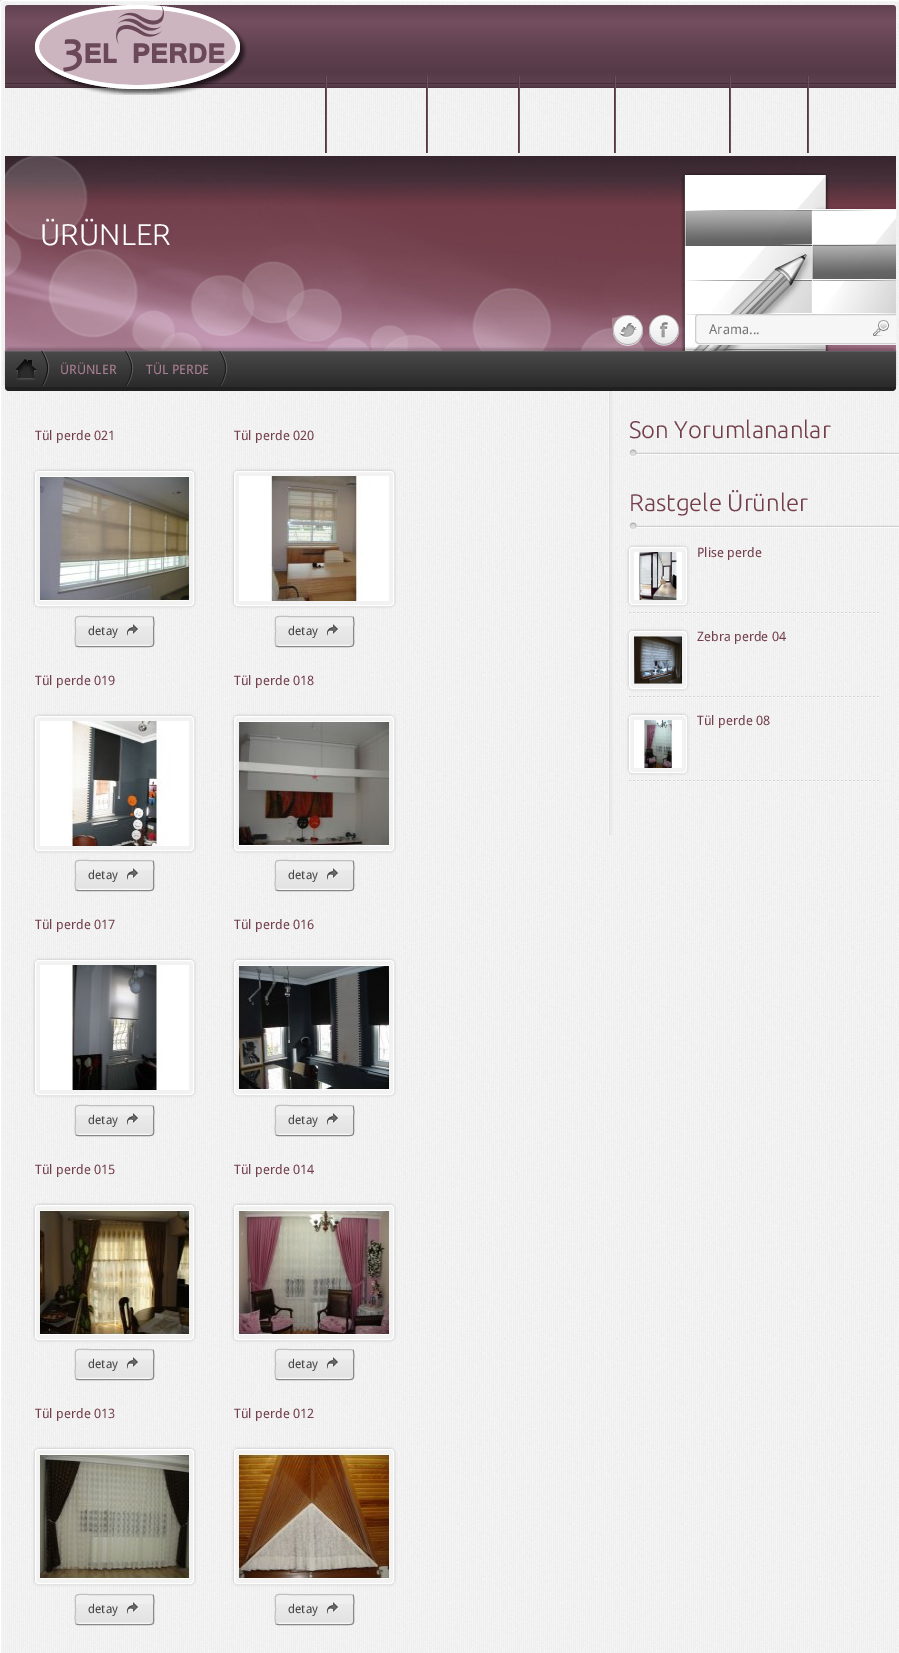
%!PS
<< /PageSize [899 1653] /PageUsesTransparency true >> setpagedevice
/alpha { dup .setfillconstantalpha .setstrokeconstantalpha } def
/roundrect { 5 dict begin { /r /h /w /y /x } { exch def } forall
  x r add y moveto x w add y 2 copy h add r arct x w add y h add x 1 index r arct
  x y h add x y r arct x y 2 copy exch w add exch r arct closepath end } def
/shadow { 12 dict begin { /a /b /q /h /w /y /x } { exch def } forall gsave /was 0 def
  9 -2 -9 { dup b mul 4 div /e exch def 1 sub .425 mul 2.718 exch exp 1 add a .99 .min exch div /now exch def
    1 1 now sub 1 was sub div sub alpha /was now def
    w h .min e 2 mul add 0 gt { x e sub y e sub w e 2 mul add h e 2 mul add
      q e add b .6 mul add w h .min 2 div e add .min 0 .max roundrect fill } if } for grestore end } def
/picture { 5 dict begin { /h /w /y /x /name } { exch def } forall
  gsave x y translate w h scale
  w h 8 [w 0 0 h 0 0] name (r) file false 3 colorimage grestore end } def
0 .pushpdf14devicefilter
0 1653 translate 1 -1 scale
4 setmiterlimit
1 setgray
0 0 899 1653 rectfill
(img1.rgb) 0 0 899 1653 picture
gsave
newpath 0 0 moveto 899 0 lineto 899 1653 lineto 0 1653 lineto closepath 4 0 moveto 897 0 lineto 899 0 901 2 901 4 curveto 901 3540 lineto 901 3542 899 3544 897 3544 curveto 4 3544 lineto 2 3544 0 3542 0 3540 curveto 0 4 lineto 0 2 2 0 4 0 curveto closepath eoclip newpath
0.753 setgray
0 0 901 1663 4 2 1 shadow
grestore
0.5 0.5 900 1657 3.5 roundrect stroke
(img2.rgb) 5 5 891 83 picture
(img3.rgb) 35 5 212 90 picture
0.447 0.302 0.365 setrgbcolor
326 76 1 77 rectfill
0.318 0.224 0.267 setrgbcolor
325 76 1 77 rectfill
0.447 0.302 0.365 setrgbcolor
427 76 1 77 rectfill
0.318 0.224 0.267 setrgbcolor
426 76 1 77 rectfill
0.447 0.302 0.365 setrgbcolor
519 76 1 77 rectfill
0.318 0.224 0.267 setrgbcolor
518 76 1 77 rectfill
0.447 0.302 0.365 setrgbcolor
615 76 1 77 rectfill
0.318 0.224 0.267 setrgbcolor
614 76 1 77 rectfill
0.447 0.302 0.365 setrgbcolor
730 76 1 77 rectfill
0.318 0.224 0.267 setrgbcolor
729 76 1 77 rectfill
0.447 0.302 0.365 setrgbcolor
808 76 1 77 rectfill
0.318 0.224 0.267 setrgbcolor
807 76 1 77 rectfill
(img4.rgb) 5 156 891 195 picture
/Ubuntu-Light [30 0 0 -30 0 0] selectfont
1 setgray
40 245 moveto (ÜRÜNLER) show
(img5.rgb) 681 173 215 178 picture
(img6.rgb) 612 315 31 31 picture
(img7.rgb) 649 314 30 32 picture
gsave
5 156 891 200 rectclip
0.98 setgray
newpath 695 340 moveto 695 341 lineto 695 343 697 345 699 345 curveto 895 345 lineto 897 345 899 343 899 341 curveto 899 340 lineto 899 342 897 344 895 344 curveto 699 344 lineto 697 344 695 342 695 340 curveto closepath fill
0.965 setgray
695 314 204 30 4 roundrect fill
grestore
(img8.rgb) 873 320 16 16 picture
gsave
5 156 891 200 rectclip
0.808 setgray
695.5 314.5 203 29 3.5 roundrect stroke
grestore
/DroidSans-Regular [13.5 0 0 -13.5 0 0] selectfont
0.459 setgray
709 334 moveto (Arama...) show
0 setgray
5 348 891 40 4 1 0.2 shadow
(img9.rgb) 5 351 891 40 picture
(img10.rgb) 15 351 35 35 picture
(img11.rgb) 125 351 9 35 picture
/DroidSans-Regular [13 0 0 -13 0 0] selectfont
0.675 0.498 0.58 setrgbcolor
60 374 moveto (ÜRÜNLER) show
(img11.rgb) 219 351 9 35 picture
146 374 moveto (TÜL PERDE) show
0.451 0.247 0.298 setrgbcolor
35 440 moveto (Tül perde 021) show
0.729 setgray
35 471 159 135 4 1.5 1 shadow
0.949 setgray
35.5 471.5 158 134 3.5 roundrect gsave fill grestore
1 setgray
stroke
(img12.rgb) 40 476 149 125 picture
0.937 setgray
75 616 79 31 3 roundrect fill
(img13.rgb) 75 626 79 20 picture
0.533 setgray
newpath 153 617 moveto 154.5 619 153.5 629 153.5 631.5 curveto 153.5 649 157 646.5 139 646.5 curveto 78 646.5 lineto 76 646 lineto stroke
0.753 setgray
newpath 76 646 moveto 74.5 644 75.5 634 75.5 631.5 curveto 75.5 614 72 616.5 90 616.5 curveto 151 616.5 lineto 153 617 lineto stroke
/DroidSans-Regular [12 0 0 -12 0 0] selectfont
0.267 setgray
88 635 moveto (detay) show
(img14.rgb) 127 624 11 12 picture
/DroidSans-Regular [13 0 0 -13 0 0] selectfont
0.451 0.247 0.298 setrgbcolor
234 440 moveto (Tül perde 020) show
0.729 setgray
234 471 160 135 4 1.5 1 shadow
0.949 setgray
234.5 471.5 159 134 3.5 roundrect gsave fill grestore
1 setgray
stroke
(img15.rgb) 239 476 150 125 picture
0.937 setgray
275 616 79 31 3 roundrect fill
(img13.rgb) 275 626 79 20 picture
0.533 setgray
newpath 353 617 moveto 354.5 619 353.5 629 353.5 631.5 curveto 353.5 649 357 646.5 339 646.5 curveto 278 646.5 lineto 276 646 lineto stroke
0.753 setgray
newpath 276 646 moveto 274.5 644 275.5 634 275.5 631.5 curveto 275.5 614 272 616.5 290 616.5 curveto 351 616.5 lineto 353 617 lineto stroke
/DroidSans-Regular [12 0 0 -12 0 0] selectfont
0.267 setgray
288 635 moveto (detay) show
(img14.rgb) 327 624 11 12 picture
/DroidSans-Regular [13 0 0 -13 0 0] selectfont
0.451 0.247 0.298 setrgbcolor
35 685 moveto (Tül perde 019) show
0.729 setgray
35 716 159 135 4 1.5 1 shadow
0.949 setgray
35.5 716.5 158 134 3.5 roundrect gsave fill grestore
1 setgray
stroke
(img16.rgb) 40 721 149 125 picture
0.937 setgray
75 860 79 31 3 roundrect fill
(img13.rgb) 75 870 79 20 picture
0.533 setgray
newpath 153 861 moveto 154.5 863 153.5 873 153.5 875.5 curveto 153.5 893 157 890.5 139 890.5 curveto 78 890.5 lineto 76 890 lineto stroke
0.753 setgray
newpath 76 890 moveto 74.5 888 75.5 878 75.5 875.5 curveto 75.5 858 72 860.5 90 860.5 curveto 151 860.5 lineto 153 861 lineto stroke
/DroidSans-Regular [12 0 0 -12 0 0] selectfont
0.267 setgray
88 879 moveto (detay) show
(img14.rgb) 127 868 11 12 picture
/DroidSans-Regular [13 0 0 -13 0 0] selectfont
0.451 0.247 0.298 setrgbcolor
234 685 moveto (Tül perde 018) show
0.729 setgray
234 716 160 135 4 1.5 1 shadow
0.949 setgray
234.5 716.5 159 134 3.5 roundrect gsave fill grestore
1 setgray
stroke
(img17.rgb) 239 721 150 125 picture
0.937 setgray
275 860 79 31 3 roundrect fill
(img13.rgb) 275 870 79 20 picture
0.533 setgray
newpath 353 861 moveto 354.5 863 353.5 873 353.5 875.5 curveto 353.5 893 357 890.5 339 890.5 curveto 278 890.5 lineto 276 890 lineto stroke
0.753 setgray
newpath 276 890 moveto 274.5 888 275.5 878 275.5 875.5 curveto 275.5 858 272 860.5 290 860.5 curveto 351 860.5 lineto 353 861 lineto stroke
/DroidSans-Regular [12 0 0 -12 0 0] selectfont
0.267 setgray
288 879 moveto (detay) show
(img14.rgb) 327 868 11 12 picture
/DroidSans-Regular [13 0 0 -13 0 0] selectfont
0.451 0.247 0.298 setrgbcolor
35 929 moveto (Tül perde 017) show
0.729 setgray
35 960 159 135 4 1.5 1 shadow
0.949 setgray
35.5 960.5 158 134 3.5 roundrect gsave fill grestore
1 setgray
stroke
(img18.rgb) 40 965 149 125 picture
0.937 setgray
75 1105 79 31 3 roundrect fill
(img13.rgb) 75 1115 79 20 picture
0.533 setgray
newpath 153 1106 moveto 154.5 1108 153.5 1118 153.5 1120.5 curveto 153.5 1138 157 1135.5 139 1135.5 curveto 78 1135.5 lineto 76 1135 lineto stroke
0.753 setgray
newpath 76 1135 moveto 74.5 1133 75.5 1123 75.5 1120.5 curveto 75.5 1103 72 1105.5 90 1105.5 curveto 151 1105.5 lineto 153 1106 lineto stroke
/DroidSans-Regular [12 0 0 -12 0 0] selectfont
0.267 setgray
88 1124 moveto (detay) show
(img14.rgb) 127 1113 11 12 picture
/DroidSans-Regular [13 0 0 -13 0 0] selectfont
0.451 0.247 0.298 setrgbcolor
234 929 moveto (Tül perde 016) show
0.729 setgray
234 960 160 135 4 1.5 1 shadow
0.949 setgray
234.5 960.5 159 134 3.5 roundrect gsave fill grestore
1 setgray
stroke
(img19.rgb) 239 965 150 125 picture
0.937 setgray
275 1105 79 31 3 roundrect fill
(img13.rgb) 275 1115 79 20 picture
0.533 setgray
newpath 353 1106 moveto 354.5 1108 353.5 1118 353.5 1120.5 curveto 353.5 1138 357 1135.5 339 1135.5 curveto 278 1135.5 lineto 276 1135 lineto stroke
0.753 setgray
newpath 276 1135 moveto 274.5 1133 275.5 1123 275.5 1120.5 curveto 275.5 1103 272 1105.5 290 1105.5 curveto 351 1105.5 lineto 353 1106 lineto stroke
/DroidSans-Regular [12 0 0 -12 0 0] selectfont
0.267 setgray
288 1124 moveto (detay) show
(img14.rgb) 327 1113 11 12 picture
/DroidSans-Regular [13 0 0 -13 0 0] selectfont
0.451 0.247 0.298 setrgbcolor
35 1174 moveto (Tül perde 015) show
0.729 setgray
35 1205 159 135 4 1.5 1 shadow
0.949 setgray
35.5 1205.5 158 134 3.5 roundrect gsave fill grestore
1 setgray
stroke
(img20.rgb) 40 1210 149 125 picture
0.937 setgray
75 1349 79 31 3 roundrect fill
(img13.rgb) 75 1359 79 20 picture
0.533 setgray
newpath 153 1350 moveto 154.5 1352 153.5 1362 153.5 1364.5 curveto 153.5 1382 157 1379.5 139 1379.5 curveto 78 1379.5 lineto 76 1379 lineto stroke
0.753 setgray
newpath 76 1379 moveto 74.5 1377 75.5 1367 75.5 1364.5 curveto 75.5 1347 72 1349.5 90 1349.5 curveto 151 1349.5 lineto 153 1350 lineto stroke
/DroidSans-Regular [12 0 0 -12 0 0] selectfont
0.267 setgray
88 1368 moveto (detay) show
(img14.rgb) 127 1357 11 12 picture
/DroidSans-Regular [13 0 0 -13 0 0] selectfont
0.451 0.247 0.298 setrgbcolor
234 1174 moveto (Tül perde 014) show
0.729 setgray
234 1205 160 135 4 1.5 1 shadow
0.949 setgray
234.5 1205.5 159 134 3.5 roundrect gsave fill grestore
1 setgray
stroke
(img21.rgb) 239 1210 150 125 picture
0.937 setgray
275 1349 79 31 3 roundrect fill
(img13.rgb) 275 1359 79 20 picture
0.533 setgray
newpath 353 1350 moveto 354.5 1352 353.5 1362 353.5 1364.5 curveto 353.5 1382 357 1379.5 339 1379.5 curveto 278 1379.5 lineto 276 1379 lineto stroke
0.753 setgray
newpath 276 1379 moveto 274.5 1377 275.5 1367 275.5 1364.5 curveto 275.5 1347 272 1349.5 290 1349.5 curveto 351 1349.5 lineto 353 1350 lineto stroke
/DroidSans-Regular [12 0 0 -12 0 0] selectfont
0.267 setgray
288 1368 moveto (detay) show
(img14.rgb) 327 1357 11 12 picture
/DroidSans-Regular [13 0 0 -13 0 0] selectfont
0.451 0.247 0.298 setrgbcolor
35 1418 moveto (Tül perde 013) show
0.729 setgray
35 1449 159 135 4 1.5 1 shadow
0.949 setgray
35.5 1449.5 158 134 3.5 roundrect gsave fill grestore
1 setgray
stroke
(img22.rgb) 40 1454 149 125 picture
0.937 setgray
75 1594 79 31 3 roundrect fill
(img13.rgb) 75 1604 79 20 picture
0.533 setgray
newpath 153 1595 moveto 154.5 1597 153.5 1607 153.5 1609.5 curveto 153.5 1627 157 1624.5 139 1624.5 curveto 78 1624.5 lineto 76 1624 lineto stroke
0.753 setgray
newpath 76 1624 moveto 74.5 1622 75.5 1612 75.5 1609.5 curveto 75.5 1592 72 1594.5 90 1594.5 curveto 151 1594.5 lineto 153 1595 lineto stroke
/DroidSans-Regular [12 0 0 -12 0 0] selectfont
0.267 setgray
88 1613 moveto (detay) show
(img14.rgb) 127 1602 11 12 picture
/DroidSans-Regular [13 0 0 -13 0 0] selectfont
0.451 0.247 0.298 setrgbcolor
234 1418 moveto (Tül perde 012) show
0.729 setgray
234 1449 160 135 4 1.5 1 shadow
0.949 setgray
234.5 1449.5 159 134 3.5 roundrect gsave fill grestore
1 setgray
stroke
(img23.rgb) 239 1454 150 125 picture
0.937 setgray
275 1594 79 31 3 roundrect fill
(img13.rgb) 275 1604 79 20 picture
0.533 setgray
newpath 353 1595 moveto 354.5 1597 353.5 1607 353.5 1609.5 curveto 353.5 1627 357 1624.5 339 1624.5 curveto 278 1624.5 lineto 276 1624 lineto stroke
0.753 setgray
newpath 276 1624 moveto 274.5 1622 275.5 1612 275.5 1609.5 curveto 275.5 1592 272 1594.5 290 1594.5 curveto 351 1594.5 lineto 353 1595 lineto stroke
/DroidSans-Regular [12 0 0 -12 0 0] selectfont
0.267 setgray
288 1613 moveto (detay) show
(img14.rgb) 327 1602 11 12 picture
(img24.rgb) 609 391 4 444 picture
0.969 setgray
608 391 1 444 rectfill
(img25.rgb) 629 449 270 8 picture
/Ubuntu-Light [24 0 0 -24 0 0] selectfont
0.451 0.247 0.298 setrgbcolor
629 438 moveto (Son Yorumlananlar) show
(img26.rgb) 629 522 270 8 picture
629 511 moveto (Rastgele Ürünler) show
0.729 setgray
629 547 58 58 4 1.5 1 shadow
0.949 setgray
629.5 547.5 57 57 3.5 roundrect gsave fill grestore
1 setgray
stroke
(img27.rgb) 634 552 48 48 picture
/DroidSans-Regular [13 0 0 -13 0 0] selectfont
0.451 0.247 0.298 setrgbcolor
697 557 moveto (Plise perde) show
(img28.rgb) 629 612 250 2 picture
0.729 setgray
629 631 58 58 4 1.5 1 shadow
0.949 setgray
629.5 631.5 57 57 3.5 roundrect gsave fill grestore
1 setgray
stroke
(img29.rgb) 634 636 48 48 picture
0.451 0.247 0.298 setrgbcolor
697 641 moveto (Zebra perde 04) show
(img30.rgb) 629 696 250 2 picture
0.729 setgray
629 715 58 58 4 1.5 1 shadow
0.949 setgray
629.5 715.5 57 57 3.5 roundrect gsave fill grestore
1 setgray
stroke
(img31.rgb) 634 720 48 48 picture
0.451 0.247 0.298 setrgbcolor
697 725 moveto (Tül perde 08) show
(img32.rgb) 629 780 250 2 picture
.poppdf14devicefilter showpage
